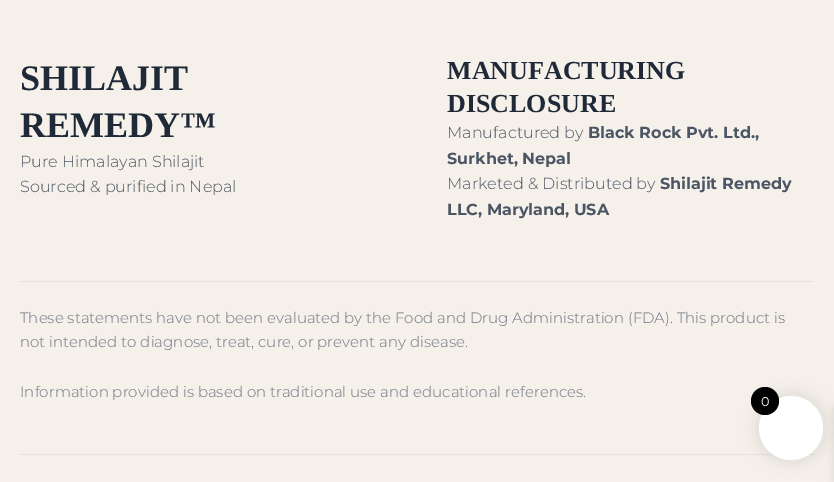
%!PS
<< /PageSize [834 482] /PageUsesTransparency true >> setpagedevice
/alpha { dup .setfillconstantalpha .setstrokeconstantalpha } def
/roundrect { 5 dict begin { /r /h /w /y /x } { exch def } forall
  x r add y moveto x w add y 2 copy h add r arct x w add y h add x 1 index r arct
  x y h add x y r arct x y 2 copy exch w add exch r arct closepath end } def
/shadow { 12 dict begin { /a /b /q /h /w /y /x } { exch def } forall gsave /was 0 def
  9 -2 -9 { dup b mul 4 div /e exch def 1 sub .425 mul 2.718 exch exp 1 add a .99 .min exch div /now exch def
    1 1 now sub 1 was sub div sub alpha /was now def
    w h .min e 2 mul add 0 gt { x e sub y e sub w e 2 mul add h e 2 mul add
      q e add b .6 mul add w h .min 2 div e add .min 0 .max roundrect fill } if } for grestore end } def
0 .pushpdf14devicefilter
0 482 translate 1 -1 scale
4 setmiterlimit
0.961 0.945 0.918 setrgbcolor
0 0 834 482 rectfill
0.902 0.89 0.863 setrgbcolor
20 281 794 1 rectfill
/LiberationSerif-Bold [36 0 0 -36 0 0] selectfont
0.122 0.161 0.216 setrgbcolor
20 90 moveto (SHILAJIT) show
20 137 moveto (REMEDY™) show
/Montserrat-Light [16 0 0 -16 0 0] selectfont
0.294 0.333 0.388 setrgbcolor
20 167 moveto (Pure Himalayan Shilajit) show
20 192 moveto (Sourced & purified in Nepal) show
/LiberationSerif-Bold [26 0 0 -26 0 0] selectfont
0.122 0.161 0.216 setrgbcolor
447 79 moveto (MANUFACTURING) show
447 112 moveto (DISCLOSURE) show
/Montserrat-Light [16 0 0 -16 0 0] selectfont
0.294 0.333 0.388 setrgbcolor
447 138 moveto (Manufactured by) show
/Montserrat-Bold [16 0 0 -16 0 0] selectfont
588 138 moveto (Black Rock Pvt. Ltd.,) show
447 164 moveto (Surkhet, Nepal) show
/Montserrat-Light [16 0 0 -16 0 0] selectfont
447 189 moveto (Marketed & Distributed by) show
/Montserrat-Bold [16 0 0 -16 0 0] selectfont
660 189 moveto (Shilajit Remedy) show
447 215 moveto (LLC, Maryland, USA) show
0.902 0.89 0.863 setrgbcolor
20 454 794 1 rectfill
/Montserrat-Light [15 0 0 -15 0 0] selectfont
0.42 0.447 0.502 setrgbcolor
20 323 moveto (These statements have not been evaluated by the Food and Drug Administration \(FDA\). This product is) show
20 347 moveto (not intended to diagnose, treat, cure, or prevent any disease.) show
20 397 moveto (Information provided is based on traditional use and educational references.) show
0 setgray
757 394 68 68 34 7.5 0.1 shadow
834 408 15 73 0 5 0.1 shadow
1 setgray
newpath 791 428 32 0 360 arc closepath fill
0 setgray
newpath 765 401 14 0 360 arc closepath fill
/Outfit-Light [13 0 0 -13 0 0] selectfont
1 setgray
761 406 moveto (0) show
.poppdf14devicefilter showpage
